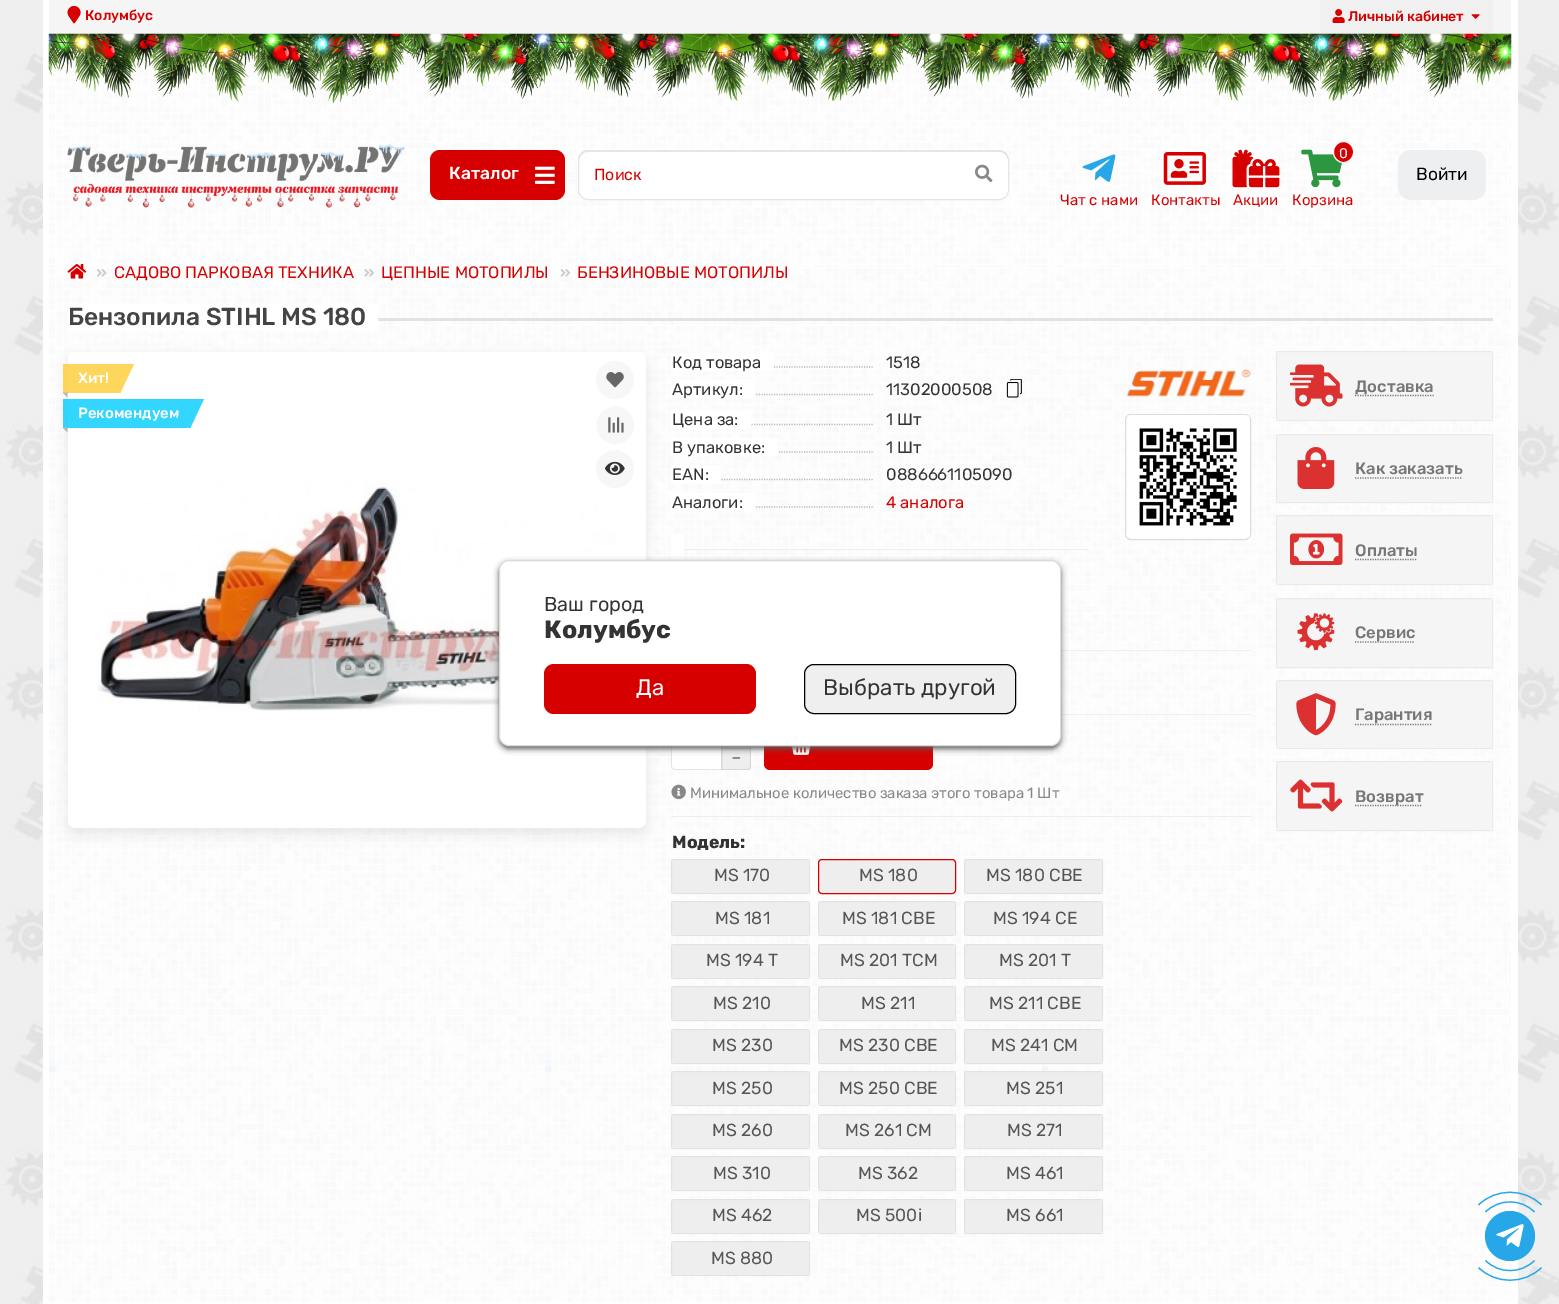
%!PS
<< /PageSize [1559 1304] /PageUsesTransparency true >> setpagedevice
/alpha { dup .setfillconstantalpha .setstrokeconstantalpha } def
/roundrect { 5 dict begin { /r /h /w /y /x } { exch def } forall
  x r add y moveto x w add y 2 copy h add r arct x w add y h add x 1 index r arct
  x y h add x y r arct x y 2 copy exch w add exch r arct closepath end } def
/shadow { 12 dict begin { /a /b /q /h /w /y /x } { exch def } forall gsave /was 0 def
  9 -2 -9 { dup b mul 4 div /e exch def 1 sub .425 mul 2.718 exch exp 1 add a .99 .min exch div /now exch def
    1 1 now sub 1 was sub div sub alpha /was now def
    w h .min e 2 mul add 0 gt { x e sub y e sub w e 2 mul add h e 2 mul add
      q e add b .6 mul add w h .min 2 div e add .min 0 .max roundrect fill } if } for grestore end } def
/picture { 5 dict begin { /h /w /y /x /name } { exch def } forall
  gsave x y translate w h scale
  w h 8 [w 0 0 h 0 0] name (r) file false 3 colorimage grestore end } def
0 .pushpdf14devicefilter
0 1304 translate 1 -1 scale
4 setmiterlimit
1 setgray
0 0 1559 1304 rectfill
(img1.rgb) 0 0 1559 1304 picture
43 0 1475 1304 rectfill
0.961 setgray
49 0 1462 33 rectfill
0.914 setgray
49 33 1462 1 rectfill
(img2.rgb) 67 5 14 19 picture
/Rubik-Medium [14 0 0 -14 0 0] selectfont
0.839 0 0 setrgbcolor
85 20 moveto (Колумбус) show
(img14.rgb) 49 267 1462 1035 picture
0 setgray
68 358 578 476 8 6 0.08 shadow
1 setgray
68 351 578 477 8 roundrect fill
(img22.rgb) 97 481 519 230 picture
671 534 13 21 rectfill
0.933 setgray
1061 650 190 1 rectfill
1061 714 190 1 rectfill
1 setgray
newpath 675 728 moveto 721 728 lineto 721 770 lineto 675 770 lineto 673 770 671 768 671 766 curveto 671 732 lineto 671 730 673 728 675 728 curveto closepath fill
0.898 setgray
newpath 675 728 moveto 721 728 lineto 721 770 lineto 675 770 lineto 673 770 671 768 671 766 curveto 671 731 lineto 671 729 673 728 675 728 curveto closepath 675 729 moveto 721 729 lineto 721 769 lineto 675 769 lineto 674 769 672 768 672 766 curveto 672 731 lineto 672 730 674 729 675 729 curveto closepath eofill
0.933 setgray
721 746 30 3 rectfill
0.1 alpha
0 setgray
721.5 728.5 29 20 rectstroke
1 alpha
0.933 setgray
newpath 721 749 moveto 751 749 lineto 751 766 lineto 751 768 749 770 747 770 curveto 721 770 lineto closepath fill
0.1 alpha
0 setgray
newpath 721 749 moveto 751 749 lineto 751 766 lineto 751 768.5 749.5 770 747.5 770 curveto 721 770 lineto closepath 722.5 749 moveto 750 749 lineto 750 766 lineto 750 767.5 749 769 747.5 769 curveto 722.5 769 lineto closepath eofill
1 alpha
(img26.rgb) 732 757 9 2 picture
0.839 0 0 setrgbcolor
764 728 169 42 6 roundrect fill
(img27.rgb) 791 746 20 9 picture
0.357 0.353 0.353 setrgbcolor
499 563 562 186 10 3 1 shadow
1 setgray
499.5 560.5 561 185 9.5 roundrect gsave fill grestore
0.855 setgray
stroke
/Rubik-Regular [20 0 0 -20 0 0] selectfont
0.2 setgray
544 611 moveto (Ваш город) show
/Rubik-Bold [25 0 0 -25 0 0] selectfont
544 638 moveto (Колумбус) show
0.839 0 0 setrgbcolor
544 664 212 50 10 roundrect fill
/Rubik-Regular [22.5 0 0 -22.5 0 0] selectfont
1 setgray
636 695 moveto (Да) show
0.937 setgray
804.5 664.5 211 49 9.5 roundrect gsave fill grestore
0 setgray
stroke
0.2 setgray
823 695 moveto (Выбрать другой) show
0.941 setgray
1320 0 173 33 rectfill
(img3.rgb) 1332 9 13 14 picture
/Rubik-Medium [14 0 0 -14 0 0] selectfont
0.839 0 0 setrgbcolor
1348 21 moveto (Личный кабинет) show
(img4.rgb) 1471 14 9 5 picture
(img5.rgb) 49 33 1462 234 picture
(img6.rgb) 48 33 1464 71 picture
(img7.rgb) 67 144 338 64 picture
430 150 135 50 10 roundrect fill
/Rubik-Medium [17.5 0 0 -17.5 0 0] selectfont
1 setgray
449 179 moveto (Каталог) show
(img8.rgb) 535 166 20 18 picture
578 150 431 50 10 roundrect fill
0.925 setgray
newpath 588 152 moveto 999 152 lineto 1004 152 1008 156 1008 161 curveto 1008 160 lineto 1008 155 1004 151 999 151 curveto 588 151 lineto 583 151 579 155 579 160 curveto 579 161 lineto 579 156 583 152 588 152 curveto closepath fill
0.1 alpha
0 setgray
578.5 150.5 430 49 9.5 roundrect stroke
/Rubik-Regular [16 0 0 -16 0 0] selectfont
1 alpha
0.839 0 0 setrgbcolor
594 180 moveto (Поиск) show
(img9.rgb) 975 164 18 19 picture
(img10.rgb) 1301 149 42 39 picture
1333.5 141.5 20 21 10 roundrect gsave fill grestore
1 setgray
stroke
/Rubik-Regular [14 0 0 -14 0 0] selectfont
1339 158 moveto (0) show
/Rubik-Regular [15 0 0 -15 0 0] selectfont
0.839 0 0 setrgbcolor
1292 205 moveto (Корзина) show
0.933 0.937 0.945 setrgbcolor
1398 150 88 50 13 roundrect fill
/Rubik-Regular [17.5 0 0 -17.5 0 0] selectfont
0 setgray
1416 180 moveto (Войти) show
(img11.rgb) 1082 154 34 28 picture
/Rubik-Regular [15 0 0 -15 0 0] selectfont
0.839 0 0 setrgbcolor
1060 205 moveto (Чат с нами) show
(img12.rgb) 1163 152 43 33 picture
1151 205 moveto (Контакты) show
(img13.rgb) 1232 149 48 39 picture
1233 205 moveto (Акции) show
(img15.rgb) 67 264 20 15 picture
(img16.rgb) 97 269 10 8 picture
/Rubik-Regular [16.6 0 0 -16.6 0 0] selectfont
114 278 moveto (САДОВО ПАРКОВАЯ ТЕХНИКА) show
(img17.rgb) 364 269 10 8 picture
381 278 moveto (ЦЕПНЫЕ МОТОПИЛЫ) show
(img18.rgb) 560 269 11 8 picture
577 278 moveto (БЕНЗИНОВЫЕ МОТОПИЛЫ) show
1 setgray
68 304 310 27 rectfill
/Rubik-Medium [24.5 0 0 -24.5 0 0] selectfont
0.267 setgray
68 325 moveto (Бензопила STIHL MS 180) show
0.1 alpha
0 setgray
378 318 1115 3 rectfill
1 alpha
0.969 setgray
71 351 572 1 rectfill
0.8 alpha
1 0.8 0.2 setrgbcolor
63 364 58 29 rectfill
/Rubik-Medium [14.9 0 0 -14.9 0 0] selectfont
1 alpha
1 setgray
78 383 moveto (Хит!) show
1 0.839 0.361 setrgbcolor
newpath 116.5 364 moveto 134 364 lineto 120.5 392.5 lineto 103 392.5 lineto closepath fill
0.733 setgray
newpath 62.5 392.5 moveto 67.5 392.5 lineto 65 395 lineto closepath fill
0.24 alpha
0 setgray
newpath 67.5 392.5 moveto 67.5 397.5 lineto 65 395 lineto closepath fill
0.8 alpha
0 0.8 1 setrgbcolor
63 399 128 29 rectfill
1 alpha
1 setgray
78 418 moveto (Рекомендуем) show
0.2 0.839 1 setrgbcolor
newpath 186.5 399 moveto 204 399 lineto 190.5 427.5 lineto 173 427.5 lineto closepath fill
0.725 setgray
newpath 62.5 427.5 moveto 67.5 427.5 lineto 65 430 lineto closepath fill
0.24 alpha
0 setgray
newpath 67.5 427.5 moveto 67.5 432.5 lineto 65 430 lineto closepath fill
1 alpha
0.969 setgray
newpath 615 380 19 0 360 arc closepath fill
(img19.rgb) 606 372 18 16 picture
newpath 634 425 moveto 634 435.5 626 444 615.5 444 curveto 605 444 596.5 435.5 596.5 425 curveto 596.5 415 605 406.5 615.5 406.5 curveto 626 406.5 634 415 634 425 curveto closepath fill
(img20.rgb) 608 417 16 16 picture
newpath 615 469 19 0 360 arc closepath fill
(img21.rgb) 605 461 20 14 picture
0.733 setgray
1.2 setlinewidth
[1.25 1.25] 0 setdash
newpath 684 367 moveto 874 367 lineto stroke
1 setgray
671 353 103 18 rectfill
/Rubik-Regular [16.6 0 0 -16.6 0 0] selectfont
0.2 setgray
672 368 moveto (Код товара) show
886 368 moveto (1518) show
0.733 setgray
newpath 684 394.5 moveto 874 394.5 lineto stroke
1 setgray
671 380 84 19 rectfill
0.2 setgray
672 395 moveto (Артикул:) show
886 395 moveto (11302000508) show
(img23.rgb) 1006 379 16 19 picture
0.733 setgray
newpath 684 424.5 moveto 874 424.5 lineto stroke
1 setgray
671 410 80 19 rectfill
0.2 setgray
672 425 moveto (Цена за:) show
886 425 moveto (1 Шт) show
0.733 setgray
newpath 684 452 moveto 874 452 lineto stroke
1 setgray
671 438 107 18 rectfill
0.2 setgray
672 453 moveto (В упаковке:) show
886 453 moveto (1 Шт) show
0.733 setgray
newpath 684 479.5 moveto 874 479.5 lineto stroke
1 setgray
671 465 50 19 rectfill
0.2 setgray
672 480 moveto (EAN:) show
886 480 moveto (0886661105090) show
0.733 setgray
newpath 684 507 moveto 874 507 lineto stroke
1 setgray
671 493 84 18 rectfill
0.2 setgray
672 508 moveto (Аналоги:) show
0.839 0 0 setrgbcolor
886 508 moveto (4 аналога) show
0.933 setgray
684 549 404 1 rectfill
(img24.rgb) 1126 369 125 28 picture
0.867 setgray
1 setlinewidth
[] 0 setdash
1125.5 414.5 125 125 5.5 roundrect stroke
(img25.rgb) 1127 415 123 123 picture
(img28.rgb) 671 784 15 16 picture
/Rubik-Regular [14.9 0 0 -14.9 0 0] selectfont
0.533 setgray
690 798 moveto (Минимальное количество заказа этого товара 1 Шт) show
0.933 setgray
671 816 580 1 rectfill
/Rubik-Bold [17.5 0 0 -17.5 0 0] selectfont
0.2 setgray
672 848 moveto (Модель:) show
0.933 setgray
671 859 139 35 4 roundrect fill
0.05 alpha
0 setgray
671.5 859.5 138 34 rectstroke
/Rubik-Regular [17.5 0 0 -17.5 0 0] selectfont
1 alpha
0.333 setgray
714 881 moveto (MS 170) show
0.933 setgray
818.5 859.5 137 34 3.5 roundrect gsave fill grestore
0.839 0 0 setrgbcolor
stroke
0.333 setgray
859 881 moveto (MS 180) show
0.933 setgray
964 859 139 35 4 roundrect fill
0.05 alpha
0 setgray
964.5 859.5 138 34 rectstroke
1 alpha
0.333 setgray
986 881 moveto (MS 180 CBE) show
0.933 setgray
671 901 139 35 4 roundrect fill
0.05 alpha
0 setgray
671.5 901.5 138 34 rectstroke
1 alpha
0.333 setgray
715 924 moveto (MS 181) show
0.933 setgray
818 901 138 35 4 roundrect fill
0.05 alpha
0 setgray
818.5 901.5 137 34 rectstroke
1 alpha
0.333 setgray
842 924 moveto (MS 181 CBE) show
0.933 setgray
964 901 139 35 4 roundrect fill
0.05 alpha
0 setgray
964.5 901.5 138 34 rectstroke
1 alpha
0.333 setgray
993 924 moveto (MS 194 CE) show
0.933 setgray
671 944 139 35 4 roundrect fill
0.05 alpha
0 setgray
671.5 944.5 138 34 rectstroke
1 alpha
0.333 setgray
706 966 moveto (MS 194 T) show
0.933 setgray
818 944 138 35 4 roundrect fill
0.05 alpha
0 setgray
818.5 944.5 137 34 rectstroke
1 alpha
0.333 setgray
840 966 moveto (MS 201 ТCM) show
0.933 setgray
964 944 139 35 4 roundrect fill
0.05 alpha
0 setgray
964.5 944.5 138 34 rectstroke
1 alpha
0.333 setgray
999 966 moveto (MS 201 T) show
0.933 setgray
671 986 139 35 4 roundrect fill
0.05 alpha
0 setgray
671.5 986.5 138 34 rectstroke
1 alpha
0.333 setgray
713 1009 moveto (MS 210) show
0.933 setgray
818 986 138 35 4 roundrect fill
0.05 alpha
0 setgray
818.5 986.5 137 34 rectstroke
1 alpha
0.333 setgray
861 1009 moveto (MS 211) show
0.933 setgray
964 986 139 35 4 roundrect fill
0.05 alpha
0 setgray
964.5 986.5 138 34 rectstroke
1 alpha
0.333 setgray
989 1009 moveto (MS 211 СBE) show
0.933 setgray
671 1029 139 35 4 roundrect fill
0.05 alpha
0 setgray
671.5 1029.5 138 34 rectstroke
1 alpha
0.333 setgray
712 1051 moveto (MS 230) show
0.933 setgray
818 1029 138 35 4 roundrect fill
0.05 alpha
0 setgray
818.5 1029.5 137 34 rectstroke
1 alpha
0.333 setgray
839 1051 moveto (MS 230 CBE) show
0.933 setgray
964 1029 139 35 4 roundrect fill
0.05 alpha
0 setgray
964.5 1029.5 138 34 rectstroke
1 alpha
0.333 setgray
991 1051 moveto (MS 241 CM) show
0.933 setgray
671 1071 139 35 4 roundrect fill
0.05 alpha
0 setgray
671.5 1071.5 138 34 rectstroke
1 alpha
0.333 setgray
712 1094 moveto (MS 250) show
0.933 setgray
818 1071 138 35 4 roundrect fill
0.05 alpha
0 setgray
818.5 1071.5 137 34 rectstroke
1 alpha
0.333 setgray
839 1094 moveto (MS 250 CBE) show
0.933 setgray
964 1071 139 35 4 roundrect fill
0.05 alpha
0 setgray
964.5 1071.5 138 34 rectstroke
1 alpha
0.333 setgray
1006 1094 moveto (MS 251) show
0.933 setgray
671 1114 139 35 4 roundrect fill
0.05 alpha
0 setgray
671.5 1114.5 138 34 rectstroke
1 alpha
0.333 setgray
712 1136 moveto (MS 260) show
0.933 setgray
818 1114 138 35 4 roundrect fill
0.05 alpha
0 setgray
818.5 1114.5 137 34 rectstroke
1 alpha
0.333 setgray
845 1136 moveto (MS 261 СМ) show
0.933 setgray
964 1114 139 35 4 roundrect fill
0.05 alpha
0 setgray
964.5 1114.5 138 34 rectstroke
1 alpha
0.333 setgray
1007 1136 moveto (MS 271) show
0.933 setgray
671 1156 139 35 4 roundrect fill
0.05 alpha
0 setgray
671.5 1156.5 138 34 rectstroke
1 alpha
0.333 setgray
713 1179 moveto (MS 310) show
0.933 setgray
818 1156 138 35 4 roundrect fill
0.05 alpha
0 setgray
818.5 1156.5 137 34 rectstroke
1 alpha
0.333 setgray
858 1179 moveto (MS 362) show
0.933 setgray
964 1156 139 35 4 roundrect fill
0.05 alpha
0 setgray
964.5 1156.5 138 34 rectstroke
1 alpha
0.333 setgray
1006 1179 moveto (MS 461) show
0.933 setgray
671 1199 139 35 4 roundrect fill
0.05 alpha
0 setgray
671.5 1199.5 138 34 rectstroke
1 alpha
0.333 setgray
712 1221 moveto (MS 462) show
0.933 setgray
818 1199 138 35 4 roundrect fill
0.05 alpha
0 setgray
818.5 1199.5 137 34 rectstroke
1 alpha
0.333 setgray
856 1221 moveto (MS 500i) show
0.933 setgray
964 1199 139 35 4 roundrect fill
0.05 alpha
0 setgray
964.5 1199.5 138 34 rectstroke
1 alpha
0.333 setgray
1006 1221 moveto (MS 661) show
0.933 setgray
671 1241 139 35 4 roundrect fill
0.05 alpha
0 setgray
671.5 1241.5 138 34 rectstroke
1 alpha
0.333 setgray
711 1264 moveto (MS 880) show
0.961 setgray
1276 351 217 70 5 roundrect fill
0.05 alpha
0 setgray
1276.5 351.5 216 69 rectstroke
1 alpha
(img29.rgb) 1290 364 53 43 picture
0.467 setgray
1.2 setlinewidth
[1.25 1.25] 0 setdash
newpath 1355 395.5 moveto 1434 395.5 lineto stroke
/Rubik-Medium [16.6 0 0 -16.6 0 0] selectfont
1355 392 moveto (Доставка) show
0.961 setgray
1276 434 217 69 5 roundrect fill
0.05 alpha
0 setgray
1 setlinewidth
[] 0 setdash
1276.5 434.5 216 68 rectstroke
1 alpha
(img30.rgb) 1297 447 38 42 picture
0.467 setgray
1355 474 moveto (Как заказать) show
1.2 setlinewidth
[1.25 1.25] 0 setdash
newpath 1355 478 moveto 1462.5 478 lineto stroke
0.961 setgray
1276 515 217 70 5 roundrect fill
0.05 alpha
0 setgray
1 setlinewidth
[] 0 setdash
1276.5 515.5 216 69 rectstroke
1 alpha
(img31.rgb) 1290 533 53 32 picture
0.467 setgray
1355 556 moveto (Оплаты) show
1.2 setlinewidth
[1.25 1.25] 0 setdash
newpath 1355 559.5 moveto 1417.5 559.5 lineto stroke
0.961 setgray
1276 598 217 70 5 roundrect fill
0.05 alpha
0 setgray
1 setlinewidth
[] 0 setdash
1276.5 598.5 216 69 rectstroke
1 alpha
(img32.rgb) 1297 613 38 38 picture
0.467 setgray
1.2 setlinewidth
[1.25 1.25] 0 setdash
newpath 1355 642 moveto 1415 642 lineto stroke
1355 638 moveto (Сервис) show
0.961 setgray
1276 680 217 69 5 roundrect fill
0.05 alpha
0 setgray
1 setlinewidth
[] 0 setdash
1276.5 680.5 216 68 rectstroke
1 alpha
(img33.rgb) 1296 693 40 43 picture
0.467 setgray
1.2 setlinewidth
[1.25 1.25] 0 setdash
newpath 1355 724.5 moveto 1432.5 724.5 lineto stroke
1355 720 moveto (Гарантия) show
0.961 setgray
1276 761 217 70 5 roundrect fill
0.05 alpha
0 setgray
1 setlinewidth
[] 0 setdash
1276.5 761.5 216 69 rectstroke
1 alpha
(img34.rgb) 1290 779 53 33 picture
0.467 setgray
1.2 setlinewidth
[1.25 1.25] 0 setdash
newpath 1355 805.5 moveto 1422.5 805.5 lineto stroke
1355 802 moveto (Возврат) show
0.153 0.655 0.906 setrgbcolor
newpath 1510 1236 25 0 360 arc closepath fill
[] 0 setdash
newpath 1485.5 1212 moveto 1499 1198.5 1521 1198.5 1534.5 1212 curveto stroke
newpath 1478.5 1205 moveto 1495.5 1188 1524.5 1188 1541.5 1205 curveto stroke
newpath 1534.5 1260.5 moveto 1521 1274 1499 1274 1485.5 1260.5 curveto stroke
newpath 1541.5 1267.5 moveto 1524.5 1284.5 1495.5 1284.5 1478.5 1267.5 curveto stroke
(img35.rgb) 1496 1224 28 23 picture
.poppdf14devicefilter showpage
